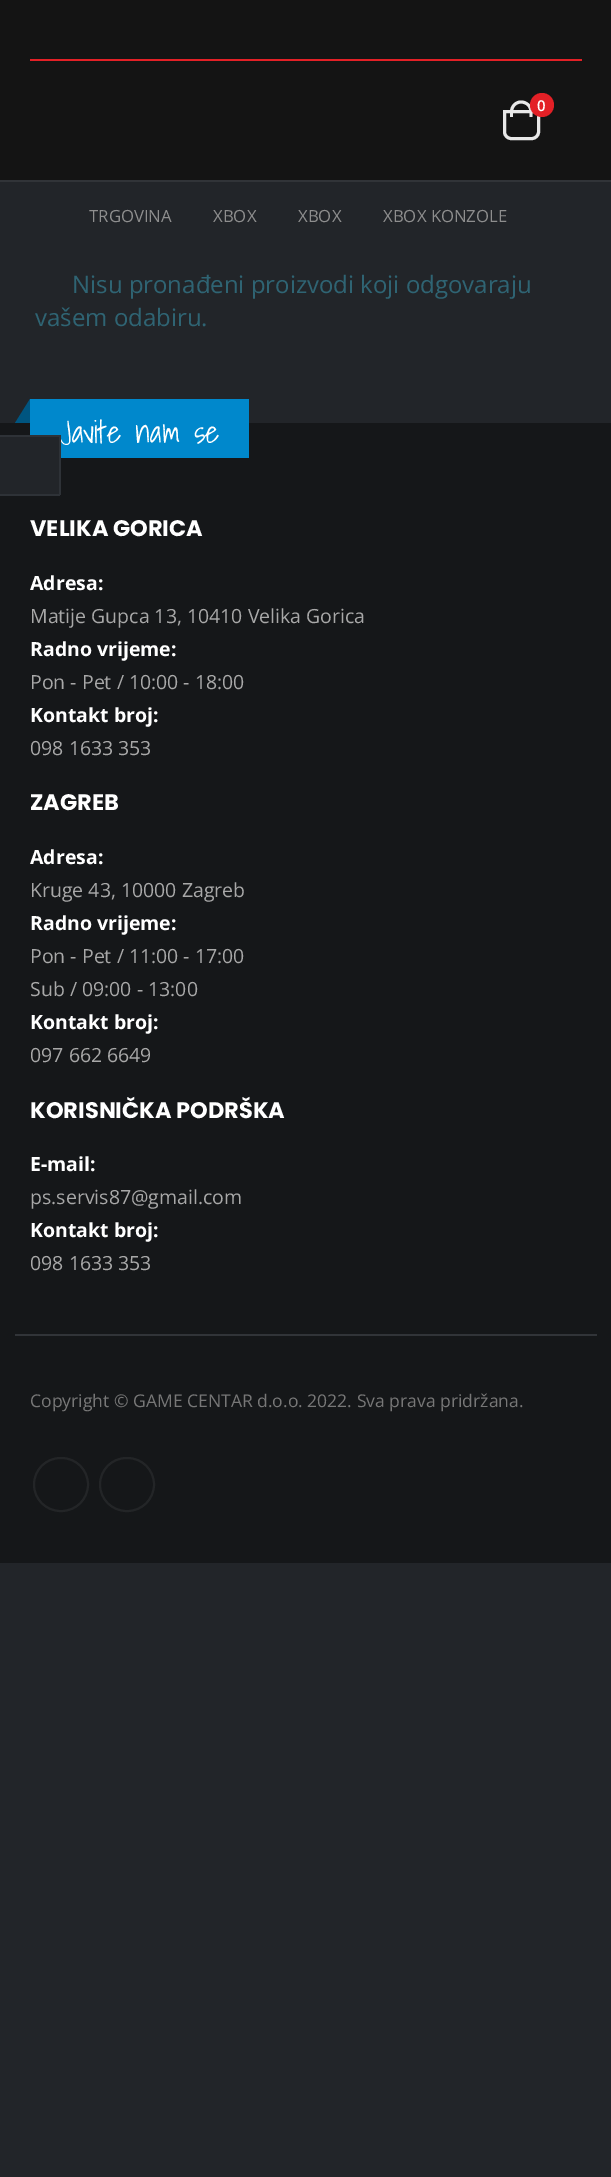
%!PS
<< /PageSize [611 2177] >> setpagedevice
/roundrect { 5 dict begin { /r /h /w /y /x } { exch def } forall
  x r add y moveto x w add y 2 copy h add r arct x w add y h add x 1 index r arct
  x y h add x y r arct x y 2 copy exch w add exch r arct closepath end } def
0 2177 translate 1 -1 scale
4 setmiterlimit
0.133 0.145 0.161 setrgbcolor
0 0 611 2177 rectfill
0.078 setgray
0 0 611 180 rectfill
0.192 0.204 0.22 setrgbcolor
0 180 611 2 rectfill
0.89 0.125 0.149 setrgbcolor
30 59 552 2 rectfill
0.91 setgray
3 setlinewidth
newpath 504.5 111.5 moveto 538.5 111.5 lineto 538.5 132 lineto 538.5 135.5 535.5 138.5 532 138.5 curveto 511 138.5 lineto 507.5 138.5 504.5 135.5 504.5 132 curveto closepath stroke
newpath 521 100.5 moveto 527.5 100.5 532.5 105.5 532.5 112 curveto 532.5 117 lineto 510 117 lineto 510 112 lineto 510 105.5 515 100.5 521 100.5 curveto closepath 521 103.5 moveto 526 103.5 529.5 107 529.5 112 curveto 529.5 117 lineto 513 117 lineto 513 112 lineto 513 107 516.5 103.5 521 103.5 curveto closepath eofill
0.89 0.125 0.149 setrgbcolor
newpath 542 105 12 0 360 arc closepath fill
/OpenSans-SemiBold [15 0 0 -15 0 0] selectfont
1 setgray
537 111 moveto (0) show
/OpenSans-Regular [16.75 0 0 -16.75 0 0] selectfont
0.557 setgray
89 222 moveto (TRGOVINA) show
213 222 moveto (XBOX) show
298 222 moveto (XBOX) show
383 222 moveto (XBOX KONZOLE) show
/OpenSans-Regular [24 0 0 -24 0 0] selectfont
0.184 0.392 0.451 setrgbcolor
72 293 moveto (Nisu pronađeni proizvodi koji odgovaraju) show
35 326 moveto (vašem odabiru.) show
0.082 0.09 0.098 setrgbcolor
0 423 611 1140 rectfill
0 0.533 0.8 setrgbcolor
30 399 219 59 rectfill
0.133 0.145 0.161 setrgbcolor
0 437 59 57 rectfill
0.18 0.196 0.216 setrgbcolor
0 435 60 2 rectfill
/ShadowsIntoLight-Regular [31.25 0 0 -31.25 0 0] selectfont
1 setgray
60 443 moveto (Javite nam se) show
0.18 0.196 0.216 setrgbcolor
59 435 2 60 rectfill
0 494 60 2 rectfill
0 0.333 0.502 setrgbcolor
newpath 30 399 moveto 30 423 lineto 15 423 lineto closepath fill
/Poppins-Bold [22.5 0 0 -22.5 0 0] selectfont
1 setgray
30 536 moveto (VELIKA GORICA) show
/OpenSans-Bold [19.5 0 0 -19.5 0 0] selectfont
30 590 moveto (Adresa:) show
/OpenSans-Regular [19.5 0 0 -19.5 0 0] selectfont
0.659 setgray
30 623 moveto (Matije Gupca 13, 10410 Velika Gorica) show
/OpenSans-Bold [19.5 0 0 -19.5 0 0] selectfont
1 setgray
30 656 moveto (Radno vrijeme:) show
/OpenSans-Regular [19.5 0 0 -19.5 0 0] selectfont
0.659 setgray
30 689 moveto (Pon - Pet / 10:00 - 18:00) show
/OpenSans-Bold [19.5 0 0 -19.5 0 0] selectfont
1 setgray
30 722 moveto (Kontakt broj:) show
/OpenSans-Regular [19.5 0 0 -19.5 0 0] selectfont
0.659 setgray
30 755 moveto (098 1633 353) show
/Poppins-Bold [22.5 0 0 -22.5 0 0] selectfont
1 setgray
30 810 moveto (ZAGREB) show
/OpenSans-Bold [19.5 0 0 -19.5 0 0] selectfont
30 864 moveto (Adresa:) show
/OpenSans-Regular [19.5 0 0 -19.5 0 0] selectfont
0.659 setgray
30 897 moveto (Kruge 43, 10000 Zagreb) show
/OpenSans-Bold [19.5 0 0 -19.5 0 0] selectfont
1 setgray
30 930 moveto (Radno vrijeme:) show
/OpenSans-Regular [19.5 0 0 -19.5 0 0] selectfont
0.659 setgray
30 963 moveto (Pon - Pet / 11:00 - 17:00) show
30 996 moveto (Sub / 09:00 - 13:00) show
/OpenSans-Bold [19.5 0 0 -19.5 0 0] selectfont
1 setgray
30 1029 moveto (Kontakt broj:) show
/OpenSans-Regular [19.5 0 0 -19.5 0 0] selectfont
0.659 setgray
30 1062 moveto (097 662 6649) show
/Poppins-Bold [22.5 0 0 -22.5 0 0] selectfont
1 setgray
30 1118 moveto (KORISNIČKA PODRŠKA) show
/OpenSans-Bold [19.5 0 0 -19.5 0 0] selectfont
30 1171 moveto (E-mail:) show
/OpenSans-Regular [19.5 0 0 -19.5 0 0] selectfont
0.659 setgray
30 1204 moveto (ps.servis87@gmail.com) show
/OpenSans-Bold [19.5 0 0 -19.5 0 0] selectfont
1 setgray
30 1237 moveto (Kontakt broj:) show
/OpenSans-Regular [19.5 0 0 -19.5 0 0] selectfont
0.659 setgray
30 1270 moveto (098 1633 353) show
0.192 0.204 0.22 setrgbcolor
15 1334 582 2 rectfill
/OpenSans-Regular [17.55 0 0 -17.55 0 0] selectfont
0.467 setgray
30 1407 moveto (Copyright © GAME CENTAR d.o.o. 2022. Sva prava pridržana.) show
0.137 0.145 0.153 setrgbcolor
2 setlinewidth
34 1458 54 53 26.5 roundrect stroke
100 1458 54 53 26.5 roundrect stroke
showpage
